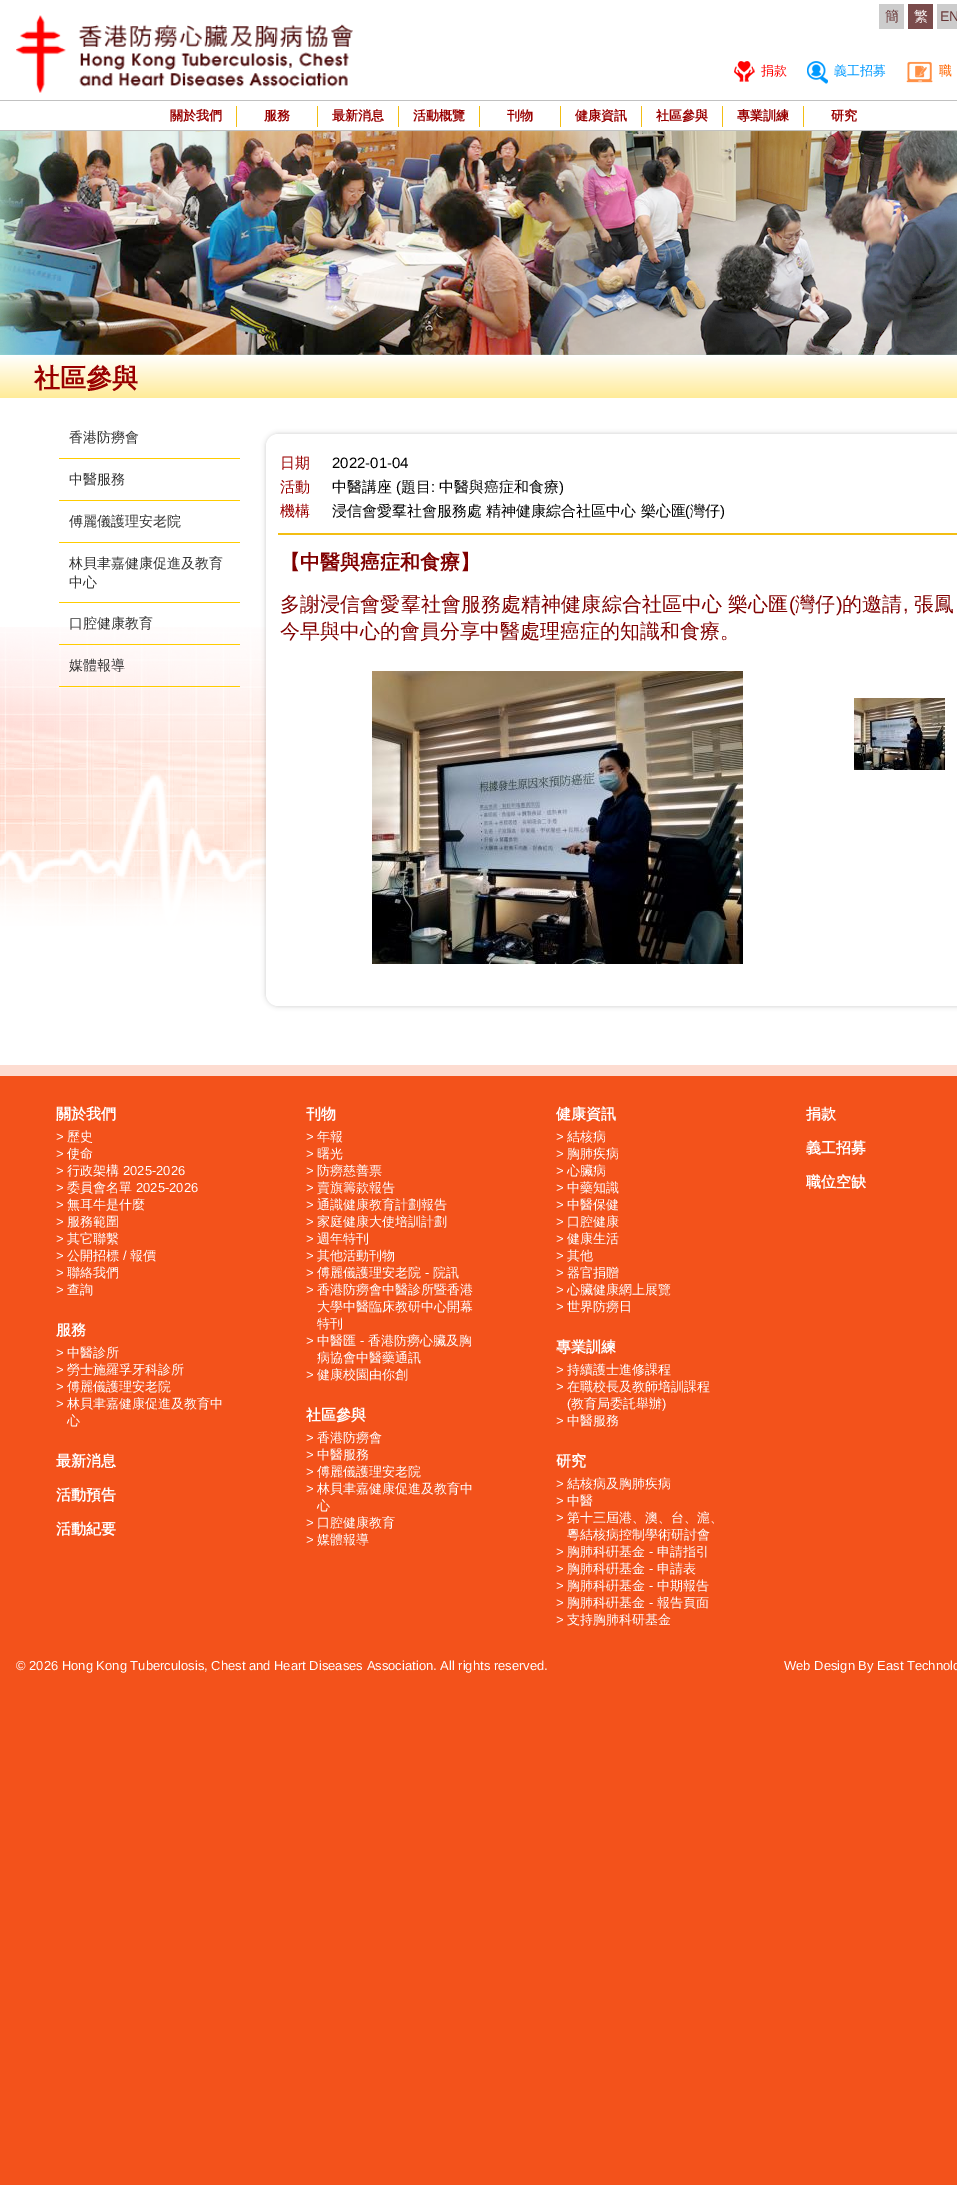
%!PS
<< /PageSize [957 2185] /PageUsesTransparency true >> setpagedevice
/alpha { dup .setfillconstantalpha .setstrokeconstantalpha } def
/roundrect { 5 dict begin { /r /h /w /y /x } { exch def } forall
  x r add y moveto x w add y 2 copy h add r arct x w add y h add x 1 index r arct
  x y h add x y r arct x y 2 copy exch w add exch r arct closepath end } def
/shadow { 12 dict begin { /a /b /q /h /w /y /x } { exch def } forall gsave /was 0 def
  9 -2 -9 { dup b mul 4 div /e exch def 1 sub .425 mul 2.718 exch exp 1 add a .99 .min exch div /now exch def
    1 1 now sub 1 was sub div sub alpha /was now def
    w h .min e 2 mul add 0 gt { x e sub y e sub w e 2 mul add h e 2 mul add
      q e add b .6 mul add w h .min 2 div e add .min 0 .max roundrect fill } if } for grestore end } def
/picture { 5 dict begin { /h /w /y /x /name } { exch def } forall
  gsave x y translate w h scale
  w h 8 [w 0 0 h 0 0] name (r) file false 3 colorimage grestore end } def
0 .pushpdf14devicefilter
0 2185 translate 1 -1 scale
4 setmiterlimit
0.953 0.322 0.106 setrgbcolor
0 0 957 2185 rectfill
1 setgray
0 0 957 1065 rectfill
(img1.rgb) 0 627 266 299 picture
0.757 setgray
0 100 957 1 rectfill
(img2.rgb) 16 15 337 78 picture
0.8 setgray
879 4 25 25 rectfill
/WenQuanYiZenHei-Medium [14 0 0 -14 0 0] selectfont
0.4 0.2 0.2 setrgbcolor
885 21 moveto (簡) show
0.478 0.294 0.294 setrgbcolor
908 4 25 25 rectfill
1 setgray
914 21 moveto (繁) show
0.8 setgray
937 4 20 25 rectfill
/LiberationSans-Regular [14 0 0 -14 0 0] selectfont
0.4 0.2 0.2 setrgbcolor
940 21 moveto (EN) show
(img3.rgb) 734 61 21 21 picture
/WenQuanYiZenHei-Medium [13 0 0 -13 0 0] selectfont
1 0 0 setrgbcolor
761 75 moveto (捐款) show
(img4.rgb) 807 61 21 23 picture
0 0.6 1 setrgbcolor
834 75 moveto (義工招募) show
(img5.rgb) 906 61 27 22 picture
1 0.4 0 setrgbcolor
939 75 moveto (職) show
0.757 setgray
0 130 957 1 rectfill
/WenQuanYiZenHei-Bold [13 0 0 -13 0 0] selectfont
0.6 0 0 setrgbcolor
170 120 moveto (關於我們) show
0.953 0.745 0.075 setrgbcolor
236 106 1 21 rectfill
0.6 0 0 setrgbcolor
264 120 moveto (服務) show
0.953 0.745 0.075 setrgbcolor
317 106 1 21 rectfill
0.6 0 0 setrgbcolor
332 120 moveto (最新消息) show
0.953 0.745 0.075 setrgbcolor
398 106 1 21 rectfill
0.6 0 0 setrgbcolor
413 120 moveto (活動概覽) show
0.953 0.745 0.075 setrgbcolor
479 106 1 21 rectfill
0.6 0 0 setrgbcolor
507 120 moveto (刊物) show
0.953 0.745 0.075 setrgbcolor
560 106 1 21 rectfill
0.6 0 0 setrgbcolor
575 120 moveto (健康資訊) show
0.953 0.745 0.075 setrgbcolor
641 106 1 21 rectfill
0.6 0 0 setrgbcolor
656 120 moveto (社區參與) show
0.953 0.745 0.075 setrgbcolor
722 106 1 21 rectfill
0.6 0 0 setrgbcolor
737 120 moveto (專業訓練) show
0.953 0.745 0.075 setrgbcolor
803 106 1 21 rectfill
0.6 0 0 setrgbcolor
831 120 moveto (研究) show
0.655 0.882 0.784 setrgbcolor
0 131 957 224 rectfill
(img6.rgb) 0 131 957 224 picture
gsave newpath 0 356 moveto 957 356 lineto 957 398 lineto 0 398 lineto closepath clip newpath
<< /ShadingType 2 /ColorSpace /DeviceRGB /Coords [500 355 500 398] /Extend [true true] /Function << /FunctionType 2 /Domain [0 1] /C0 [1 1 1] /C1 [1 0.922 0.596] /N 1 >> >> shfill grestore
/WenQuanYiZenHei-Bold [26 0 0 -26 0 0] selectfont
0.6 0 0 setrgbcolor
34 387 moveto (社區參與) show
1 0.8 0 setrgbcolor
59 458 181 1 rectfill
/WenQuanYiZenHei-Medium [14 0 0 -14 0 0] selectfont
0.2 setgray
69 442 moveto (香港防癆會) show
1 0.8 0 setrgbcolor
59 500 181 1 rectfill
0.2 setgray
69 484 moveto (中醫服務) show
1 0.8 0 setrgbcolor
59 542 181 1 rectfill
0.2 setgray
69 526 moveto (傅麗儀護理安老院) show
1 0.8 0 setrgbcolor
59 602 181 1 rectfill
0.2 setgray
69 568 moveto (林貝聿嘉健康促進及教育) show
69 587 moveto (中心) show
1 0.8 0 setrgbcolor
59 644 181 1 rectfill
0.2 setgray
69 628 moveto (口腔健康教育) show
1 0.8 0 setrgbcolor
59 686 181 1 rectfill
0.2 setgray
69 670 moveto (媒體報導) show
0 setgray
266 434 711 572 12 2.5 0.2 shadow
1 setgray
newpath 278 434 moveto 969 434 lineto 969 1006 lineto 278 1006 lineto 271.5 1006 266 1000.5 266 994 curveto 266 446 lineto 266 439.5 271.5 434 278 434 curveto closepath fill
0.953 0.745 0.075 setrgbcolor
278 533 679 2 rectfill
/WenQuanYiZenHei-Medium [15 0 0 -15 0 0] selectfont
0.6 0 0 setrgbcolor
280 468 moveto (日期) show
/LiberationSans-Regular [15 0 0 -15 0 0] selectfont
0 setgray
332 468 moveto (2022-01-04) show
/WenQuanYiZenHei-Medium [15 0 0 -15 0 0] selectfont
0.6 0 0 setrgbcolor
280 492 moveto (活動) show
0 setgray
332 492 moveto (中醫講座) show
/LiberationSans-Regular [15 0 0 -15 0 0] selectfont
396 492 moveto (\() show
/WenQuanYiZenHei-Medium [15 0 0 -15 0 0] selectfont
401 492 moveto (題目) show
/LiberationSans-Regular [15 0 0 -15 0 0] selectfont
431 492 moveto (:) show
/WenQuanYiZenHei-Medium [15 0 0 -15 0 0] selectfont
439 492 moveto (中醫與癌症和食療) show
/LiberationSans-Regular [15 0 0 -15 0 0] selectfont
559 492 moveto (\)) show
/WenQuanYiZenHei-Medium [15 0 0 -15 0 0] selectfont
0.6 0 0 setrgbcolor
280 516 moveto (機構) show
0 setgray
332 516 moveto (浸信會愛羣社會服務處 精神健康綜合社區中心 樂心匯) show
/LiberationSans-Regular [15 0 0 -15 0 0] selectfont
685 516 moveto (\() show
/WenQuanYiZenHei-Medium [15 0 0 -15 0 0] selectfont
690 516 moveto (灣仔) show
/LiberationSans-Regular [15 0 0 -15 0 0] selectfont
720 516 moveto (\)) show
/WenQuanYiZenHei-Bold [20 0 0 -20 0 0] selectfont
0.502 0 0 setrgbcolor
280 569 moveto (【中醫與癌症和食療】) show
/WenQuanYiZenHei-Medium [20 0 0 -20 0 0] selectfont
280 611 moveto 0.1 0 (多謝浸信會愛羣社會服務處精神健康綜合社區中心 樂心匯) ashow
/LiberationSans-Regular [20 0 0 -20 0 0] selectfont
789 611 moveto 0.1 0 (\() ashow
/WenQuanYiZenHei-Medium [20 0 0 -20 0 0] selectfont
795 611 moveto 0.1 0 (灣仔) ashow
/LiberationSans-Regular [20 0 0 -20 0 0] selectfont
836 611 moveto 0.1 0 (\)) ashow
/WenQuanYiZenHei-Medium [20 0 0 -20 0 0] selectfont
842 611 moveto 0.1 0 (的邀請) ashow
/LiberationSans-Regular [20 0 0 -20 0 0] selectfont
903 611 moveto 0.1 0 (,) ashow
/WenQuanYiZenHei-Medium [20 0 0 -20 0 0] selectfont
914 611 moveto 0.1 0 (張鳳) ashow
280 638 moveto (今早與中心的會員分享中醫處理癌症的知識和食療。) show
(img7.rgb) 372 671 371 293 picture
(img8.rgb) 854 698 91 72 picture
0.992 0.863 0.82 setrgbcolor
0 1065 957 11 rectfill
/WenQuanYiZenHei-Bold [15 0 0 -15 0 0] selectfont
1 setgray
56 1119 moveto (關於我們) show
/LiberationSans-Regular [13 0 0 -13 0 0] selectfont
56 1141 moveto (>) show
/WenQuanYiZenHei-Medium [13 0 0 -13 0 0] selectfont
67 1141 moveto (歷史) show
/LiberationSans-Regular [13 0 0 -13 0 0] selectfont
56 1158 moveto (>) show
/WenQuanYiZenHei-Medium [13 0 0 -13 0 0] selectfont
67 1158 moveto (使命) show
/LiberationSans-Regular [13 0 0 -13 0 0] selectfont
56 1175 moveto (>) show
/WenQuanYiZenHei-Medium [13 0 0 -13 0 0] selectfont
67 1175 moveto (行政架構) show
/LiberationSans-Regular [13 0 0 -13 0 0] selectfont
123 1175 moveto (2025-2026) show
56 1192 moveto (>) show
/WenQuanYiZenHei-Medium [13 0 0 -13 0 0] selectfont
67 1192 moveto (委員會名單) show
/LiberationSans-Regular [13 0 0 -13 0 0] selectfont
136 1192 moveto (2025-2026) show
56 1209 moveto (>) show
/WenQuanYiZenHei-Medium [13 0 0 -13 0 0] selectfont
67 1209 moveto (無耳牛是什麼) show
/LiberationSans-Regular [13 0 0 -13 0 0] selectfont
56 1226 moveto (>) show
/WenQuanYiZenHei-Medium [13 0 0 -13 0 0] selectfont
67 1226 moveto (服務範圍) show
/LiberationSans-Regular [13 0 0 -13 0 0] selectfont
56 1243 moveto (>) show
/WenQuanYiZenHei-Medium [13 0 0 -13 0 0] selectfont
67 1243 moveto (其它聯繫) show
/LiberationSans-Regular [13 0 0 -13 0 0] selectfont
56 1260 moveto (>) show
/WenQuanYiZenHei-Medium [13 0 0 -13 0 0] selectfont
67 1260 moveto (公開招標) show
/LiberationSans-Regular [13 0 0 -13 0 0] selectfont
123 1260 moveto (/) show
/WenQuanYiZenHei-Medium [13 0 0 -13 0 0] selectfont
130 1260 moveto (報價) show
/LiberationSans-Regular [13 0 0 -13 0 0] selectfont
56 1277 moveto (>) show
/WenQuanYiZenHei-Medium [13 0 0 -13 0 0] selectfont
67 1277 moveto (聯絡我們) show
/LiberationSans-Regular [13 0 0 -13 0 0] selectfont
56 1294 moveto (>) show
/WenQuanYiZenHei-Medium [13 0 0 -13 0 0] selectfont
67 1294 moveto (查詢) show
/WenQuanYiZenHei-Bold [15 0 0 -15 0 0] selectfont
56 1335 moveto (服務) show
/LiberationSans-Regular [13 0 0 -13 0 0] selectfont
56 1357 moveto (>) show
/WenQuanYiZenHei-Medium [13 0 0 -13 0 0] selectfont
67 1357 moveto (中醫診所) show
/LiberationSans-Regular [13 0 0 -13 0 0] selectfont
56 1374 moveto (>) show
/WenQuanYiZenHei-Medium [13 0 0 -13 0 0] selectfont
67 1374 moveto (勞士施羅孚牙科診所) show
/LiberationSans-Regular [13 0 0 -13 0 0] selectfont
56 1391 moveto (>) show
/WenQuanYiZenHei-Medium [13 0 0 -13 0 0] selectfont
67 1391 moveto (傅麗儀護理安老院) show
/LiberationSans-Regular [13 0 0 -13 0 0] selectfont
56 1408 moveto (>) show
/WenQuanYiZenHei-Medium [13 0 0 -13 0 0] selectfont
67 1408 moveto (林貝聿嘉健康促進及教育中) show
67 1425 moveto (心) show
/WenQuanYiZenHei-Bold [15 0 0 -15 0 0] selectfont
56 1466 moveto (最新消息) show
56 1500 moveto (活動預告) show
56 1534 moveto (活動紀要) show
306 1119 moveto (刊物) show
/LiberationSans-Regular [13 0 0 -13 0 0] selectfont
306 1141 moveto (>) show
/WenQuanYiZenHei-Medium [13 0 0 -13 0 0] selectfont
317 1141 moveto (年報) show
/LiberationSans-Regular [13 0 0 -13 0 0] selectfont
306 1158 moveto (>) show
/WenQuanYiZenHei-Medium [13 0 0 -13 0 0] selectfont
317 1158 moveto (曙光) show
/LiberationSans-Regular [13 0 0 -13 0 0] selectfont
306 1175 moveto (>) show
/WenQuanYiZenHei-Medium [13 0 0 -13 0 0] selectfont
317 1175 moveto (防癆慈善票) show
/LiberationSans-Regular [13 0 0 -13 0 0] selectfont
306 1192 moveto (>) show
/WenQuanYiZenHei-Medium [13 0 0 -13 0 0] selectfont
317 1192 moveto (賣旗籌款報告) show
/LiberationSans-Regular [13 0 0 -13 0 0] selectfont
306 1209 moveto (>) show
/WenQuanYiZenHei-Medium [13 0 0 -13 0 0] selectfont
317 1209 moveto (通識健康教育計劃報告) show
/LiberationSans-Regular [13 0 0 -13 0 0] selectfont
306 1226 moveto (>) show
/WenQuanYiZenHei-Medium [13 0 0 -13 0 0] selectfont
317 1226 moveto (家庭健康大使培訓計劃) show
/LiberationSans-Regular [13 0 0 -13 0 0] selectfont
306 1243 moveto (>) show
/WenQuanYiZenHei-Medium [13 0 0 -13 0 0] selectfont
317 1243 moveto (週年特刊) show
/LiberationSans-Regular [13 0 0 -13 0 0] selectfont
306 1260 moveto (>) show
/WenQuanYiZenHei-Medium [13 0 0 -13 0 0] selectfont
317 1260 moveto (其他活動刊物) show
/LiberationSans-Regular [13 0 0 -13 0 0] selectfont
306 1277 moveto (>) show
/WenQuanYiZenHei-Medium [13 0 0 -13 0 0] selectfont
317 1277 moveto (傅麗儀護理安老院) show
/LiberationSans-Regular [13 0 0 -13 0 0] selectfont
425 1277 moveto (-) show
/WenQuanYiZenHei-Medium [13 0 0 -13 0 0] selectfont
433 1277 moveto (院訊) show
/LiberationSans-Regular [13 0 0 -13 0 0] selectfont
306 1294 moveto (>) show
/WenQuanYiZenHei-Medium [13 0 0 -13 0 0] selectfont
317 1294 moveto (香港防癆會中醫診所暨香港) show
317 1311 moveto (大學中醫臨床教研中心開幕) show
317 1328 moveto (特刊) show
/LiberationSans-Regular [13 0 0 -13 0 0] selectfont
306 1345 moveto (>) show
/WenQuanYiZenHei-Medium [13 0 0 -13 0 0] selectfont
317 1345 moveto (中醫匯) show
/LiberationSans-Regular [13 0 0 -13 0 0] selectfont
360 1345 moveto (-) show
/WenQuanYiZenHei-Medium [13 0 0 -13 0 0] selectfont
368 1345 moveto (香港防癆心臟及胸) show
317 1362 moveto (病協會中醫藥通訊) show
/LiberationSans-Regular [13 0 0 -13 0 0] selectfont
306 1379 moveto (>) show
/WenQuanYiZenHei-Medium [13 0 0 -13 0 0] selectfont
317 1379 moveto (健康校園由你創) show
/WenQuanYiZenHei-Bold [15 0 0 -15 0 0] selectfont
306 1420 moveto (社區參與) show
/LiberationSans-Regular [13 0 0 -13 0 0] selectfont
306 1442 moveto (>) show
/WenQuanYiZenHei-Medium [13 0 0 -13 0 0] selectfont
317 1442 moveto (香港防癆會) show
/LiberationSans-Regular [13 0 0 -13 0 0] selectfont
306 1459 moveto (>) show
/WenQuanYiZenHei-Medium [13 0 0 -13 0 0] selectfont
317 1459 moveto (中醫服務) show
/LiberationSans-Regular [13 0 0 -13 0 0] selectfont
306 1476 moveto (>) show
/WenQuanYiZenHei-Medium [13 0 0 -13 0 0] selectfont
317 1476 moveto (傅麗儀護理安老院) show
/LiberationSans-Regular [13 0 0 -13 0 0] selectfont
306 1493 moveto (>) show
/WenQuanYiZenHei-Medium [13 0 0 -13 0 0] selectfont
317 1493 moveto (林貝聿嘉健康促進及教育中) show
317 1510 moveto (心) show
/LiberationSans-Regular [13 0 0 -13 0 0] selectfont
306 1527 moveto (>) show
/WenQuanYiZenHei-Medium [13 0 0 -13 0 0] selectfont
317 1527 moveto (口腔健康教育) show
/LiberationSans-Regular [13 0 0 -13 0 0] selectfont
306 1544 moveto (>) show
/WenQuanYiZenHei-Medium [13 0 0 -13 0 0] selectfont
317 1544 moveto (媒體報導) show
/WenQuanYiZenHei-Bold [15 0 0 -15 0 0] selectfont
556 1119 moveto (健康資訊) show
/LiberationSans-Regular [13 0 0 -13 0 0] selectfont
556 1141 moveto (>) show
/WenQuanYiZenHei-Medium [13 0 0 -13 0 0] selectfont
567 1141 moveto (結核病) show
/LiberationSans-Regular [13 0 0 -13 0 0] selectfont
556 1158 moveto (>) show
/WenQuanYiZenHei-Medium [13 0 0 -13 0 0] selectfont
567 1158 moveto (胸肺疾病) show
/LiberationSans-Regular [13 0 0 -13 0 0] selectfont
556 1175 moveto (>) show
/WenQuanYiZenHei-Medium [13 0 0 -13 0 0] selectfont
567 1175 moveto (心臟病) show
/LiberationSans-Regular [13 0 0 -13 0 0] selectfont
556 1192 moveto (>) show
/WenQuanYiZenHei-Medium [13 0 0 -13 0 0] selectfont
567 1192 moveto (中藥知識) show
/LiberationSans-Regular [13 0 0 -13 0 0] selectfont
556 1209 moveto (>) show
/WenQuanYiZenHei-Medium [13 0 0 -13 0 0] selectfont
567 1209 moveto (中醫保健) show
/LiberationSans-Regular [13 0 0 -13 0 0] selectfont
556 1226 moveto (>) show
/WenQuanYiZenHei-Medium [13 0 0 -13 0 0] selectfont
567 1226 moveto (口腔健康) show
/LiberationSans-Regular [13 0 0 -13 0 0] selectfont
556 1243 moveto (>) show
/WenQuanYiZenHei-Medium [13 0 0 -13 0 0] selectfont
567 1243 moveto (健康生活) show
/LiberationSans-Regular [13 0 0 -13 0 0] selectfont
556 1260 moveto (>) show
/WenQuanYiZenHei-Medium [13 0 0 -13 0 0] selectfont
567 1260 moveto (其他) show
/LiberationSans-Regular [13 0 0 -13 0 0] selectfont
556 1277 moveto (>) show
/WenQuanYiZenHei-Medium [13 0 0 -13 0 0] selectfont
567 1277 moveto (器官捐贈) show
/LiberationSans-Regular [13 0 0 -13 0 0] selectfont
556 1294 moveto (>) show
/WenQuanYiZenHei-Medium [13 0 0 -13 0 0] selectfont
567 1294 moveto (心臟健康網上展覽) show
/LiberationSans-Regular [13 0 0 -13 0 0] selectfont
556 1311 moveto (>) show
/WenQuanYiZenHei-Medium [13 0 0 -13 0 0] selectfont
567 1311 moveto (世界防癆日) show
/WenQuanYiZenHei-Bold [15 0 0 -15 0 0] selectfont
556 1352 moveto (專業訓練) show
/LiberationSans-Regular [13 0 0 -13 0 0] selectfont
556 1374 moveto (>) show
/WenQuanYiZenHei-Medium [13 0 0 -13 0 0] selectfont
567 1374 moveto (持續護士進修課程) show
/LiberationSans-Regular [13 0 0 -13 0 0] selectfont
556 1391 moveto (>) show
/WenQuanYiZenHei-Medium [13 0 0 -13 0 0] selectfont
567 1391 moveto (在職校長及教師培訓課程) show
/LiberationSans-Regular [13 0 0 -13 0 0] selectfont
567 1408 moveto (\() show
/WenQuanYiZenHei-Medium [13 0 0 -13 0 0] selectfont
571 1408 moveto (教育局委託舉辦) show
/LiberationSans-Regular [13 0 0 -13 0 0] selectfont
662 1408 moveto (\)) show
556 1425 moveto (>) show
/WenQuanYiZenHei-Medium [13 0 0 -13 0 0] selectfont
567 1425 moveto (中醫服務) show
/WenQuanYiZenHei-Bold [15 0 0 -15 0 0] selectfont
556 1466 moveto (研究) show
/LiberationSans-Regular [13 0 0 -13 0 0] selectfont
556 1488 moveto (>) show
/WenQuanYiZenHei-Medium [13 0 0 -13 0 0] selectfont
567 1488 moveto (結核病及胸肺疾病) show
/LiberationSans-Regular [13 0 0 -13 0 0] selectfont
556 1505 moveto (>) show
/WenQuanYiZenHei-Medium [13 0 0 -13 0 0] selectfont
567 1505 moveto (中醫) show
/LiberationSans-Regular [13 0 0 -13 0 0] selectfont
556 1522 moveto (>) show
/WenQuanYiZenHei-Medium [13 0 0 -13 0 0] selectfont
567 1522 moveto (第十三屆港、澳、台、滬、) show
567 1539 moveto (粵結核病控制學術研討會) show
/LiberationSans-Regular [13 0 0 -13 0 0] selectfont
556 1556 moveto (>) show
/WenQuanYiZenHei-Medium [13 0 0 -13 0 0] selectfont
567 1556 moveto (胸肺科硏基金) show
/LiberationSans-Regular [13 0 0 -13 0 0] selectfont
649 1556 moveto (-) show
/WenQuanYiZenHei-Medium [13 0 0 -13 0 0] selectfont
657 1556 moveto (申請指引) show
/LiberationSans-Regular [13 0 0 -13 0 0] selectfont
556 1573 moveto (>) show
/WenQuanYiZenHei-Medium [13 0 0 -13 0 0] selectfont
567 1573 moveto (胸肺科硏基金) show
/LiberationSans-Regular [13 0 0 -13 0 0] selectfont
649 1573 moveto (-) show
/WenQuanYiZenHei-Medium [13 0 0 -13 0 0] selectfont
657 1573 moveto (申請表) show
/LiberationSans-Regular [13 0 0 -13 0 0] selectfont
556 1590 moveto (>) show
/WenQuanYiZenHei-Medium [13 0 0 -13 0 0] selectfont
567 1590 moveto (胸肺科硏基金) show
/LiberationSans-Regular [13 0 0 -13 0 0] selectfont
649 1590 moveto (-) show
/WenQuanYiZenHei-Medium [13 0 0 -13 0 0] selectfont
657 1590 moveto (中期報告) show
/LiberationSans-Regular [13 0 0 -13 0 0] selectfont
556 1607 moveto (>) show
/WenQuanYiZenHei-Medium [13 0 0 -13 0 0] selectfont
567 1607 moveto (胸肺科硏基金) show
/LiberationSans-Regular [13 0 0 -13 0 0] selectfont
649 1607 moveto (-) show
/WenQuanYiZenHei-Medium [13 0 0 -13 0 0] selectfont
657 1607 moveto (報告頁面) show
/LiberationSans-Regular [13 0 0 -13 0 0] selectfont
556 1624 moveto (>) show
/WenQuanYiZenHei-Medium [13 0 0 -13 0 0] selectfont
567 1624 moveto (支持胸肺科研基金) show
/WenQuanYiZenHei-Bold [15 0 0 -15 0 0] selectfont
806 1119 moveto (捐款) show
806 1153 moveto (義工招募) show
806 1187 moveto (職位空缺) show
/LiberationSans-Regular [13 0 0 -13 0 0] selectfont
16 1670 moveto (© 2026 Hong Kong Tuberculosis, Chest and Heart Diseases Association. All rights reserved.) show
784 1670 moveto (Web Design By East Technolo) show
.poppdf14devicefilter showpage
